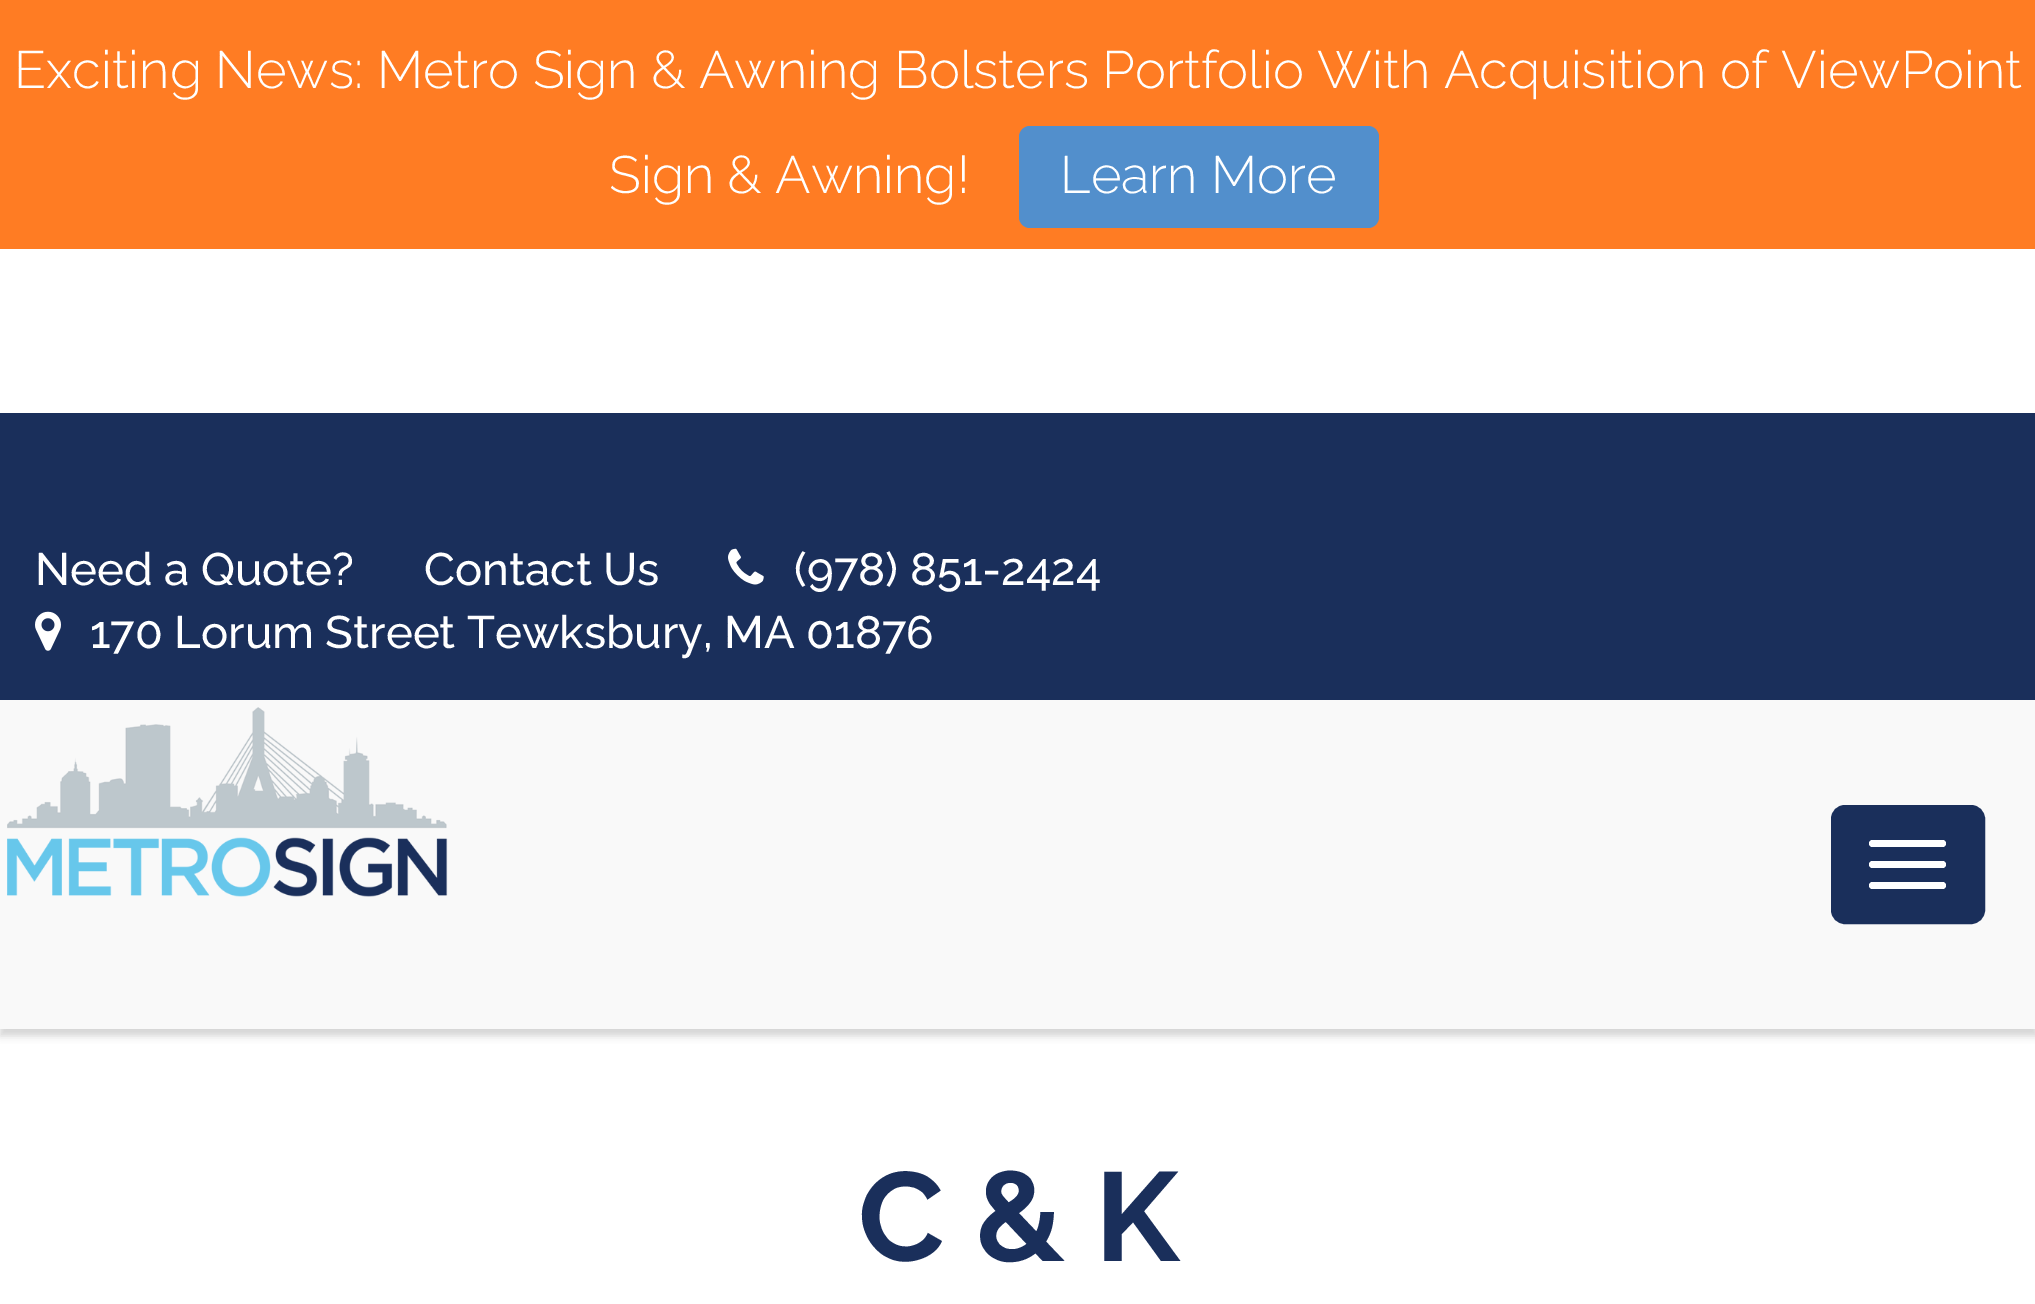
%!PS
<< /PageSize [2035 1304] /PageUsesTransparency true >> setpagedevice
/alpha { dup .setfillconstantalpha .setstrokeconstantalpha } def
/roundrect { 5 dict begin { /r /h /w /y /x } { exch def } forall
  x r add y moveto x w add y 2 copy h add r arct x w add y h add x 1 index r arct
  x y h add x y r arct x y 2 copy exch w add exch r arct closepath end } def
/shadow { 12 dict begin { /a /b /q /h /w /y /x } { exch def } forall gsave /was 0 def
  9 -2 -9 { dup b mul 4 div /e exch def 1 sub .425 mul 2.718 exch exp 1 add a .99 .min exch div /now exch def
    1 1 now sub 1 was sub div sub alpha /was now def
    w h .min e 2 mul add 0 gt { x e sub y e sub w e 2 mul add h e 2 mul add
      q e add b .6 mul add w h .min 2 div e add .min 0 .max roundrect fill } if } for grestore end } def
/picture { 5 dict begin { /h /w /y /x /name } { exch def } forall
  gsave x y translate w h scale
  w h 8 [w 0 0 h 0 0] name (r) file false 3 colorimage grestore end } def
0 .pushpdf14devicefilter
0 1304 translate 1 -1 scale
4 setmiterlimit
1 setgray
0 0 2035 1304 rectfill
1 0.486 0.137 setrgbcolor
0 0 2035 249 rectfill
/Raleway-Light [52.5 0 0 -52.5 0 0] selectfont
1 setgray
14 88 moveto (Exciting News: Metro Sign & Awning Bolsters Portfolio With Acquisition of ViewPoint) show
609 193 moveto (Sign & Awning!) show
0.322 0.561 0.8 setrgbcolor
1019 126 360 102 11 roundrect fill
1 setgray
1060 193 moveto (Learn More) show
0.102 0.184 0.357 setrgbcolor
0 413 2035 287 rectfill
/Raleway-Medium [45.5 0 0 -45.5 0 0] selectfont
1 setgray
35 585 moveto (Need a Quote?) show
424 585 moveto (Contact Us) show
(img1.rgb) 728 548 36 37 picture
794 585 moveto (\(978\) 851-2424) show
(img2.rgb) 35 611 26 40 picture
90 648 moveto (170 Lorum Street Tewksbury, MA 01876) show
0.196 setgray
0 707 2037 329 0 3.5 0.2 shadow
0.976 setgray
0 700 2035 329 rectfill
(img3.rgb) 7 707 441 190 picture
0.102 0.184 0.357 setrgbcolor
1833 807 150 115 12 roundrect gsave fill grestore
4 setlinewidth
stroke
1 setgray
1869 840 77 7 3.5 roundrect fill
1869 861 77 7 3.5 roundrect fill
1869 882 77 7 3.5 roundrect fill
/Raleway-Bold [126 0 0 -126 0 0] selectfont
0.102 0.184 0.357 setrgbcolor
858 1261 moveto (C & K) show
.poppdf14devicefilter showpage
